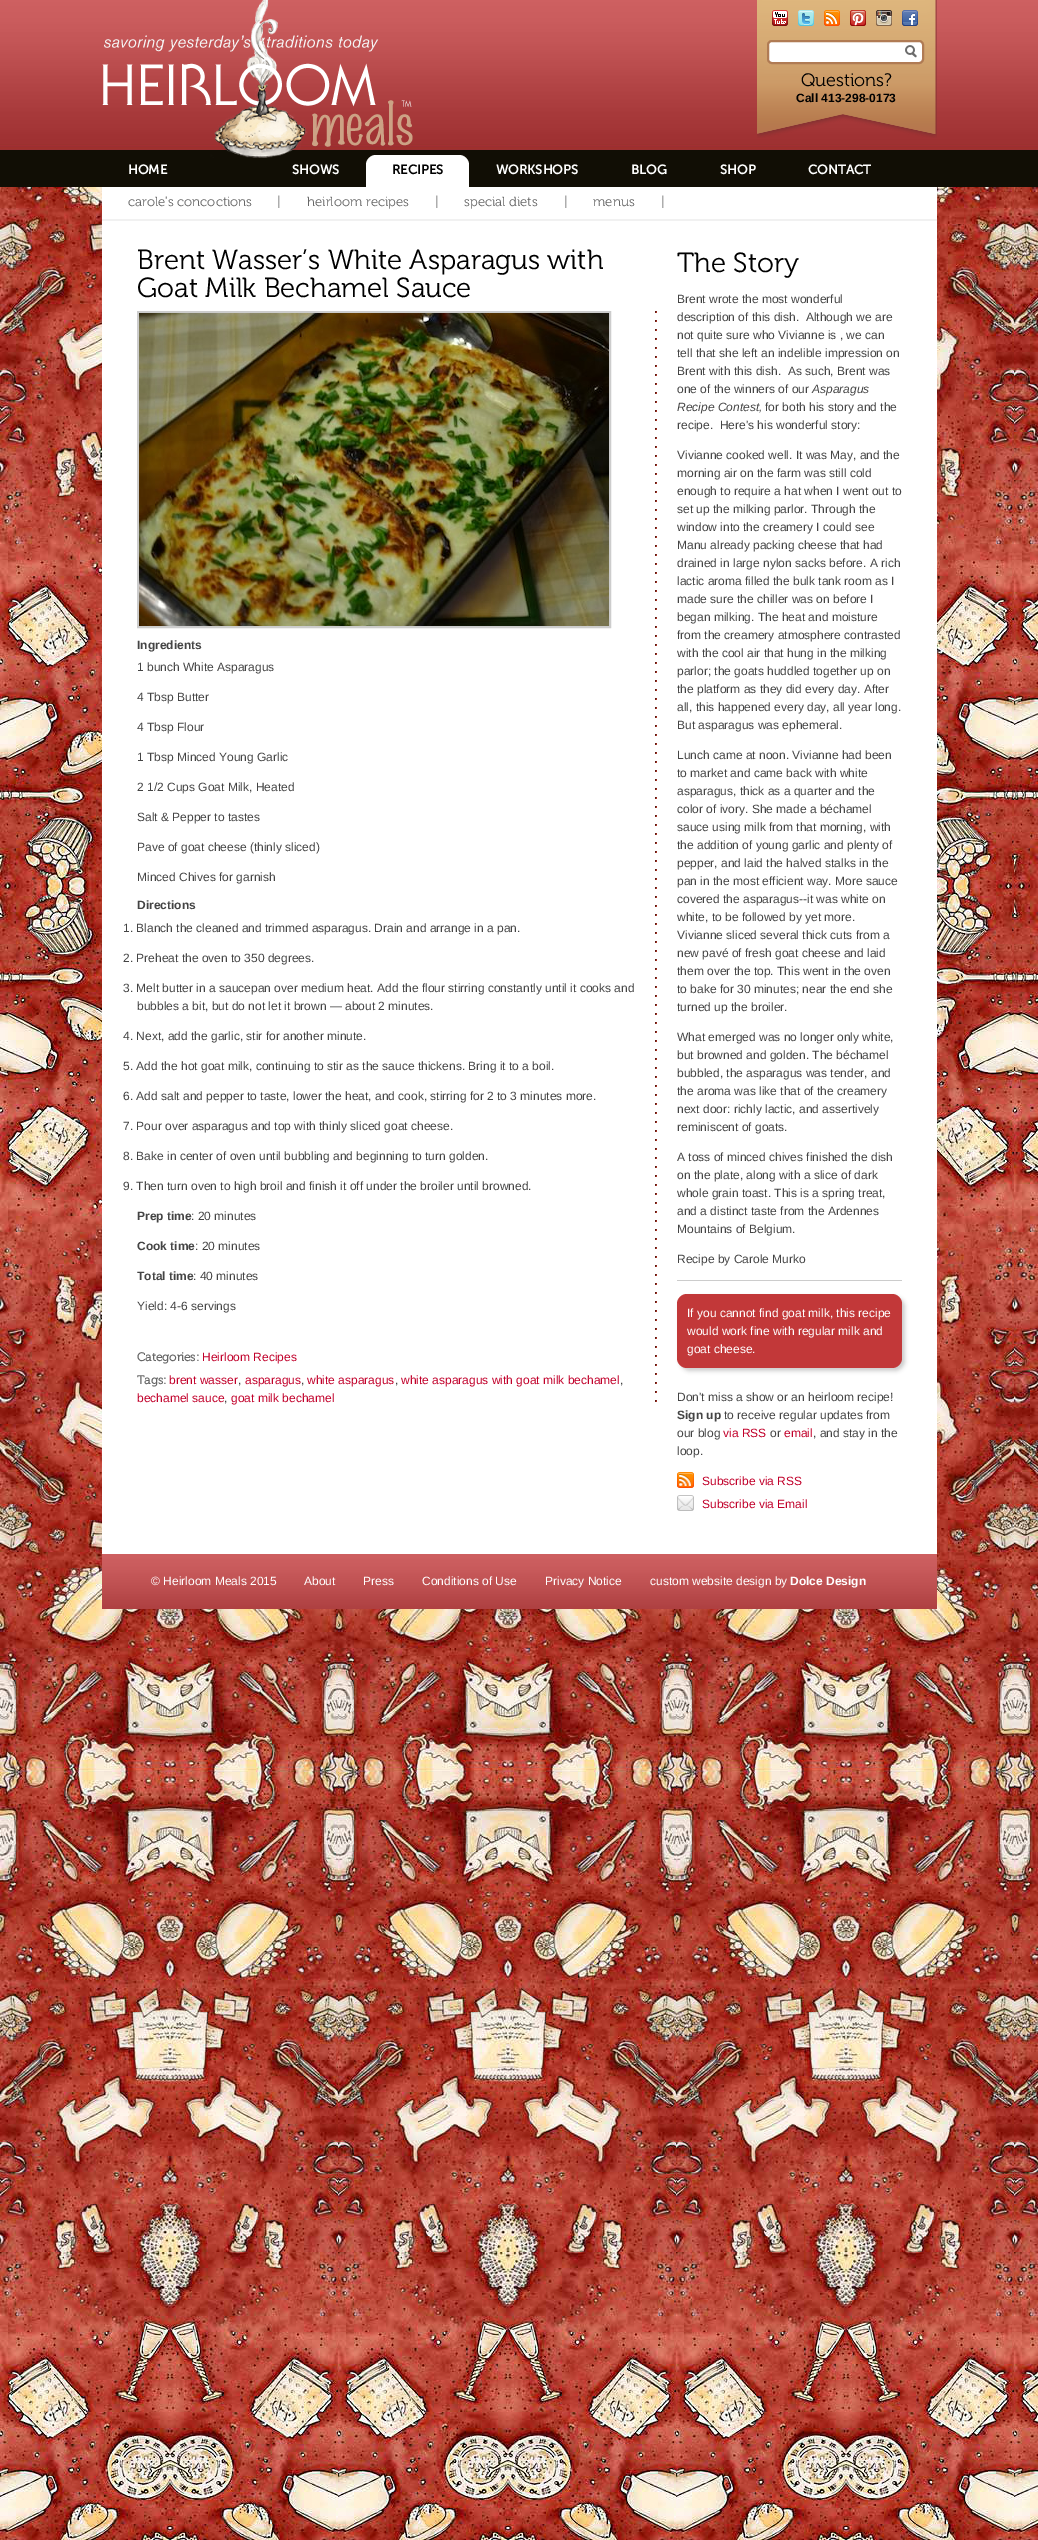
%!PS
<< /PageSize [1038 2540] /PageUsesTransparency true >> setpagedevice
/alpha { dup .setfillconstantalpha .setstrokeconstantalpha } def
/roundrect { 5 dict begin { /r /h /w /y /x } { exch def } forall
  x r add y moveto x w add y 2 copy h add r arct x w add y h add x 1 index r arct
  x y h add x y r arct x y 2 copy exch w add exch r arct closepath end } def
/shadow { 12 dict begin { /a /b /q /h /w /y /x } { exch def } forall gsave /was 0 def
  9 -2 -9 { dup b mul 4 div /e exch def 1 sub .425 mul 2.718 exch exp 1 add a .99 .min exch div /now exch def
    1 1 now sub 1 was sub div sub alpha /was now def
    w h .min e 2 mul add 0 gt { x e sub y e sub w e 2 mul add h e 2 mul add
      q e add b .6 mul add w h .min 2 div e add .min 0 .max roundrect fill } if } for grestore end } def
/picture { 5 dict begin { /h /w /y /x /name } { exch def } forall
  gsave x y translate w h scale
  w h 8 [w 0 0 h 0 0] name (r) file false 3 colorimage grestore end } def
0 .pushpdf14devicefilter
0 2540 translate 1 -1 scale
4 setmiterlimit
1 setgray
0 0 1038 2540 rectfill
(img1.rgb) 0 187 1038 2353 picture
(img2.rgb) 0 0 1038 187 picture
(img3.rgb) 102 0 311 158 picture
(img4.rgb) 757 0 180 138 picture
(img5.rgb) 772 10 16 16 picture
(img6.rgb) 798 10 16 16 picture
(img7.rgb) 824 10 16 16 picture
(img8.rgb) 850 10 16 16 picture
(img9.rgb) 876 10 16 16 picture
(img10.rgb) 902 10 16 16 picture
768 41 155 22 4 roundrect gsave fill grestore
0.69 0.482 0.329 setrgbcolor
2 setlinewidth
stroke
(img11.rgb) 905 45 12 13 picture
/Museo-Light [18 0 0 -18 0 0] selectfont
0 setgray
801 86 moveto (Questions?) show
/LiberationSans-Bold [12 0 0 -12 0 0] selectfont
796 102 moveto (Call 413-298-0173) show
/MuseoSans-Bold [13 0 0 -13 0 0] selectfont
1 setgray
128 174 moveto (HOME) show
292 174 moveto (SHOWS) show
102 187 835 32 rectfill
newpath 376 155 moveto 459 155 lineto 464.5 155 469 159.5 469 165 curveto 469 188 lineto 366 188 lineto 366 165 lineto 366 159.5 370.5 155 376 155 curveto closepath fill
0 setgray
392 174 moveto (RECIPES) show
1 setgray
496 174 moveto (WORKSHOPS) show
631 174 moveto (BLOG) show
720 174 moveto (SHOP) show
808 174 moveto (CONTACT) show
0.945 setgray
102 219 835 2 rectfill
/Museo-Light [13.25 0 0 -13.25 0 0] selectfont
0.4 setgray
128 206 moveto (carole's concoctions) show
277 206 moveto (|) show
307 206 moveto (heirloom recipes) show
435 206 moveto (|) show
464 206 moveto (special diets) show
564 206 moveto (|) show
593 206 moveto (menus) show
661 206 moveto (|) show
1 setgray
102 221 835 1333 rectfill
/Museo-Light [27.6 0 0 -27.6 0 0] selectfont
0 setgray
137 269 moveto (Brent Wasser’s White Asparagus with) show
137 297 moveto (Goat Milk Bechamel Sauce) show
(img12.rgb) 655 311 2 1091 picture
0.8 setgray
138 312 472 315 rectstroke
(img13.rgb) 139 313 470 313 picture
/LiberationSans-Bold [12 0 0 -12 0 0] selectfont
0.267 setgray
137 649 moveto (Ingredients) show
/LiberationSans-Regular [12 0 0 -12 0 0] selectfont
137 671 moveto (1 bunch White Asparagus) show
137 701 moveto (4 Tbsp Butter) show
137 731 moveto (4 Tbsp Flour) show
137 761 moveto (1 Tbsp Minced Young Garlic) show
137 791 moveto (2 1/2 Cups Goat Milk, Heated) show
137 821 moveto (Salt & Pepper to tastes) show
137 851 moveto (Pave of goat cheese \(thinly sliced\)) show
137 881 moveto (Minced Chives for garnish) show
/LiberationSans-Bold [12 0 0 -12 0 0] selectfont
137 909 moveto (Directions) show
/LiberationSans-Regular [12 0 0 -12 0 0] selectfont
123 932 moveto (1. Blanch the cleaned and trimmed asparagus. Drain and arrange in a pan.) show
123 962 moveto (2. Preheat the oven to 350 degrees.) show
123 992 moveto (3. Melt butter in a saucepan over medium heat. Add the flour stirring constantly until it cooks and) show
137 1010 moveto (bubbles a bit, but do not let it brown — about 2 minutes.) show
123 1040 moveto (4. Next, add the garlic, stir for another minute.) show
123 1070 moveto (5. Add the hot goat milk, continuing to stir as the sauce thickens. Bring it to a boil.) show
123 1100 moveto (6. Add salt and pepper to taste, lower the heat, and cook, stirring for 2 to 3 minutes more.) show
123 1130 moveto (7. Pour over asparagus and top with thinly sliced goat cheese.) show
123 1160 moveto (8. Bake in center of oven until bubbling and beginning to turn golden.) show
123 1190 moveto (9. Then turn oven to high broil and finish it off under the broiler until browned.) show
/LiberationSans-Bold [12 0 0 -12 0 0] selectfont
137 1220 moveto (Prep time) show
/LiberationSans-Regular [12 0 0 -12 0 0] selectfont
191 1220 moveto (: 20 minutes) show
/LiberationSans-Bold [12 0 0 -12 0 0] selectfont
137 1250 moveto (Cook time) show
/LiberationSans-Regular [12 0 0 -12 0 0] selectfont
195 1250 moveto (: 20 minutes) show
/LiberationSans-Bold [12 0 0 -12 0 0] selectfont
137 1280 moveto (Total time) show
/LiberationSans-Regular [12 0 0 -12 0 0] selectfont
193 1280 moveto (: 40 minutes) show
137 1310 moveto (Yield: 4-6 servings) show
/Museo-Bold [12 0 0 -12 0 0] selectfont
0.4 setgray
137 1361 moveto (Categories:) show
/LiberationSans-Regular [12 0 0 -12 0 0] selectfont
0.757 0 0.165 setrgbcolor
202 1361 moveto (Heirloom Recipes) show
/Museo-Bold [12 0 0 -12 0 0] selectfont
0.4 setgray
137 1384 moveto (Tags:) show
/LiberationSans-Regular [12 0 0 -12 0 0] selectfont
0.757 0 0.165 setrgbcolor
169 1384 moveto (brent wasser) show
0.267 setgray
238 1384 moveto (,) show
0.757 0 0.165 setrgbcolor
245 1384 moveto (asparagus) show
0.267 setgray
301 1384 moveto (,) show
0.757 0 0.165 setrgbcolor
307 1384 moveto (white asparagus) show
0.267 setgray
395 1384 moveto (,) show
0.757 0 0.165 setrgbcolor
401 1384 moveto (white asparagus with goat milk bechamel) show
0.267 setgray
620 1384 moveto (,) show
0.757 0 0.165 setrgbcolor
137 1402 moveto (bechamel sauce) show
0.267 setgray
224 1402 moveto (,) show
0.757 0 0.165 setrgbcolor
231 1402 moveto (goat milk bechamel) show
/Museo-Light [27.6 0 0 -27.6 0 0] selectfont
0 setgray
677 272 moveto (The Story) show
/LiberationSans-Regular [12 0 0 -12 0 0] selectfont
0.267 setgray
677 303 moveto (Brent wrote the most wonderful) show
677 321 moveto (description of this dish.  Although we are) show
677 339 moveto (not quite sure who Vivianne is , we can) show
677 357 moveto (tell that she left an indelible impression on) show
677 375 moveto (Brent with this dish.  As such, Brent was) show
677 393 moveto (one of the winners of our) show
/LiberationSans-Italic [12 0 0 -12 0 0] selectfont
812 393 moveto (Asparagus) show
677 411 moveto (Recipe Contest,) show
/LiberationSans-Regular [12 0 0 -12 0 0] selectfont
765 411 moveto (for both his story and the) show
677 429 moveto (recipe.  Here's his wonderful story:) show
677 459 moveto (Vivianne cooked well. It was May, and the) show
677 477 moveto (morning air on the farm was still cold) show
677 495 moveto (enough to require a hat when I went out to) show
677 513 moveto (set up the milking parlor. Through the) show
677 531 moveto (window into the creamery I could see) show
677 549 moveto (Manu already packing cheese that had) show
677 567 moveto (drained in large nylon sacks before. A rich) show
677 585 moveto (lactic aroma filled the bulk tank room as I) show
677 603 moveto (made sure the chiller was on before I) show
677 621 moveto (began milking. The heat and moisture) show
677 639 moveto (from the creamery atmosphere contrasted) show
677 657 moveto (with the cool air that hung in the milking) show
677 675 moveto (parlor; the goats huddled together up on) show
677 693 moveto (the platform as they did every day. After) show
677 711 moveto (all, this happened every day, all year long.) show
677 729 moveto (But asparagus was ephemeral.) show
677 759 moveto (Lunch came at noon. Vivianne had been) show
677 777 moveto (to market and came back with white) show
677 795 moveto (asparagus, thick as a quarter and the) show
677 813 moveto (color of ivory. She made a béchamel) show
677 831 moveto (sauce using milk from that morning, with) show
677 849 moveto (the addition of young garlic and plenty of) show
677 867 moveto (pepper, and laid the halved stalks in the) show
677 885 moveto (pan in the most efficient way. More sauce) show
677 903 moveto (covered the asparagus--it was white on) show
677 921 moveto (white, to be followed by yet more.) show
677 939 moveto (Vivianne sliced several thick cuts from a) show
677 957 moveto (new pavé of fresh goat cheese and laid) show
677 975 moveto (them over the top. This went in the oven) show
677 993 moveto (to bake for 30 minutes; near the end she) show
677 1011 moveto (turned up the broiler.) show
677 1041 moveto (What emerged was no longer only white,) show
677 1059 moveto (but browned and golden. The béchamel) show
677 1077 moveto (bubbled, the asparagus was tender, and) show
677 1095 moveto (the aroma was like that of the creamery) show
677 1113 moveto (next door: richly lactic, and assertively) show
677 1131 moveto (reminiscent of goats.) show
677 1161 moveto (A toss of minced chives finished the dish) show
677 1179 moveto (on the plate, along with a slice of dark) show
677 1197 moveto (whole grain toast. This is a spring treat,) show
677 1215 moveto (and a distinct taste from the Ardennes) show
677 1233 moveto (Mountains of Belgium.) show
677 1263 moveto (Recipe by Carole Murko) show
0.8 setgray
677 1280 225 1 rectfill
680 1297 225 74 10 2 1 shadow
0.761 0.22 0.224 setrgbcolor
677 1294 225 74 10 roundrect fill
1 setgray
687 1317 moveto (If you cannot find goat milk, this recipe) show
687 1335 moveto (would work fine with regular milk and) show
687 1353 moveto (goat cheese.) show
0.267 setgray
677 1401 moveto (Don't miss a show or an heirloom recipe!) show
/LiberationSans-Bold [12 0 0 -12 0 0] selectfont
677 1419 moveto (Sign up) show
/LiberationSans-Regular [12 0 0 -12 0 0] selectfont
724 1419 moveto (to receive regular updates from) show
677 1437 moveto (our blog) show
0.757 0 0.165 setrgbcolor
723 1437 moveto (via RSS) show
0.267 setgray
770 1437 moveto (or) show
0.757 0 0.165 setrgbcolor
784 1437 moveto (email) show
0.267 setgray
813 1437 moveto (, and stay in the) show
677 1455 moveto (loop.) show
(img14.rgb) 677 1472 17 16 picture
0.757 0 0.165 setrgbcolor
702 1485 moveto (Subscribe via RSS) show
(img15.rgb) 677 1495 17 16 picture
702 1508 moveto (Subscribe via Email) show
(img16.rgb) 102 1554 835 55 picture
1 setgray
151 1585 moveto (© Heirloom Meals 2015) show
304 1585 moveto (About) show
363 1585 moveto (Press) show
422 1585 moveto (Conditions of Use) show
545 1585 moveto (Privacy Notice) show
650 1585 moveto (custom website design by) show
/LiberationSans-Bold [12 0 0 -12 0 0] selectfont
790 1585 moveto (Dolce Design) show
.poppdf14devicefilter showpage
